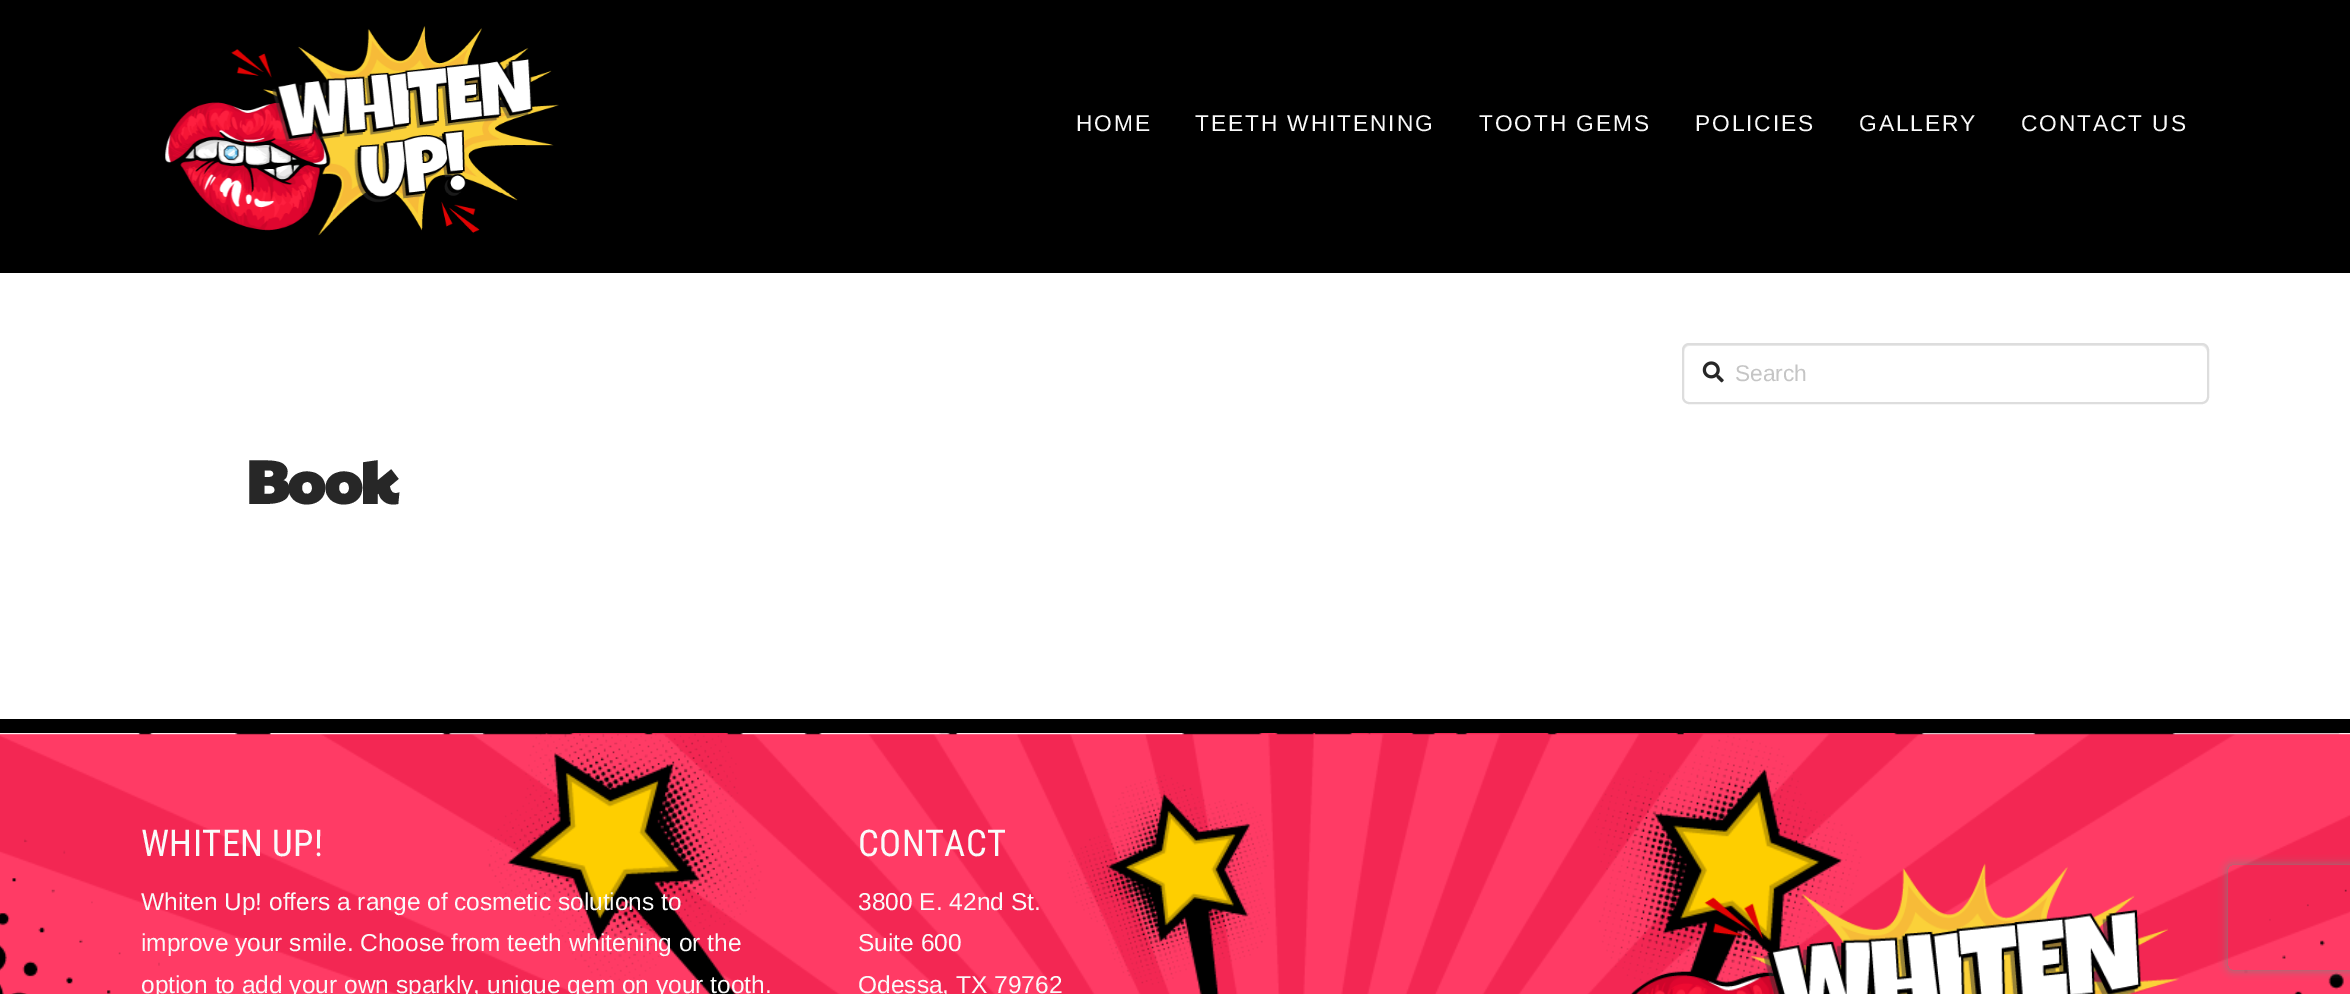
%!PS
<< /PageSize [2350 994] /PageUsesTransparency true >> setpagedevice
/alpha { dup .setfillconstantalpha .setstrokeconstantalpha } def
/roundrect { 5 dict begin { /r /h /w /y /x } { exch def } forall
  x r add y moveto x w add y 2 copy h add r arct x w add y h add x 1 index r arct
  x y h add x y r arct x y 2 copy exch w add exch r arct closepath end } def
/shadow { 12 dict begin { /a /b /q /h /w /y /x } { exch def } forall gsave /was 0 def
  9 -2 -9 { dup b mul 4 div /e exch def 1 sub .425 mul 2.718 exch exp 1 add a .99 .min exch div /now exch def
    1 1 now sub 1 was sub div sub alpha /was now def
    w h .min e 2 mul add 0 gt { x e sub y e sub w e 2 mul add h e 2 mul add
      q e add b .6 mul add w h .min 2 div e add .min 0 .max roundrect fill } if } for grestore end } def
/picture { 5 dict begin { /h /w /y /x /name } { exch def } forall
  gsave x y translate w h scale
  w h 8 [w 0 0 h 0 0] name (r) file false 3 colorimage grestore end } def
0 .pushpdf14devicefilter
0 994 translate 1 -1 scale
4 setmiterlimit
1 setgray
0 0 2350 994 rectfill
0 setgray
0 0 2350 273 rectfill
(img1.rgb) 165 26 394 210 picture
/LiberationSans-Regular [22.75 0 0 -22.75 0 0] selectfont
0.98 setgray
1076 131 moveto 1.9 0 (HOME) ashow
1195 131 moveto 1.9 0 (TEETH WHITENING) ashow
1479 131 moveto 1.9 0 (TOOTH GEMS) ashow
1695 131 moveto 1.9 0 (POLICIES) ashow
1859 131 moveto 1.9 0 (GALLERY) ashow
2021 131 moveto 1.9 0 (CONTACT US) ashow
0.925 setgray
newpath 1689 346 moveto 2202 346 lineto 2204 346 2207 349 2207 352 curveto 2207 350 lineto 2207 347 2205 345 2202 345 curveto 1689 345 lineto 1686 345 1684 347 1684 350 curveto 1684 352 lineto 1684 349 1686 346 1689 346 curveto closepath fill
0.867 setgray
2 setlinewidth
1683 344 525 59 6 roundrect stroke
(img2.rgb) 1702 361 22 22 picture
0.773 setgray
1735 381 moveto (Search) show
/PaytoneOne-Bold [61 0 0 -61 0 0] selectfont
0.153 setgray
246 504 moveto -2 0 (Book) ashow
1 0.231 0.396 setrgbcolor
0 733 2350 261 rectfill
(img3.rgb) 0 733 2350 261 picture
0 setgray
0 719 2350 14 rectfill
/RobotoCondensed-Regular [36.75 0 0 -36.75 0 0] selectfont
0.98 setgray
141 856 moveto 0.4 0 (WHITEN UP!) ashow
/LiberationSans-Regular [24.5 0 0 -24.5 0 0] selectfont
141 910 moveto (Whiten Up! offers a range of cosmetic solutions to) show
141 951 moveto (improve your smile. Choose from teeth whitening or the) show
141 993 moveto (option to add your own sparkly, unique gem on your tooth.) show
/RobotoCondensed-Regular [36.75 0 0 -36.75 0 0] selectfont
858 856 moveto 0.4 0 (CONTACT) ashow
/LiberationSans-Regular [24.5 0 0 -24.5 0 0] selectfont
858 910 moveto (3800 E. 42nd St.) show
858 951 moveto (Suite 600) show
858 993 moveto (Odessa, TX 79762) show
(img4.rgb) 1631 863 548 131 picture
gsave
newpath 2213 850 moveto 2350 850 lineto 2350 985 lineto 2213 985 lineto closepath 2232 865 moveto 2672 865 lineto 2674 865 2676 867 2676 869 curveto 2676 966 lineto 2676 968 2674 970 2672 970 curveto 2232 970 lineto 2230 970 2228 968 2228 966 curveto 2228 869 lineto 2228 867 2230 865 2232 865 curveto closepath eoclip newpath
0.502 setgray
2228 865 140 105 4 4.5 1 shadow
grestore
.poppdf14devicefilter showpage
